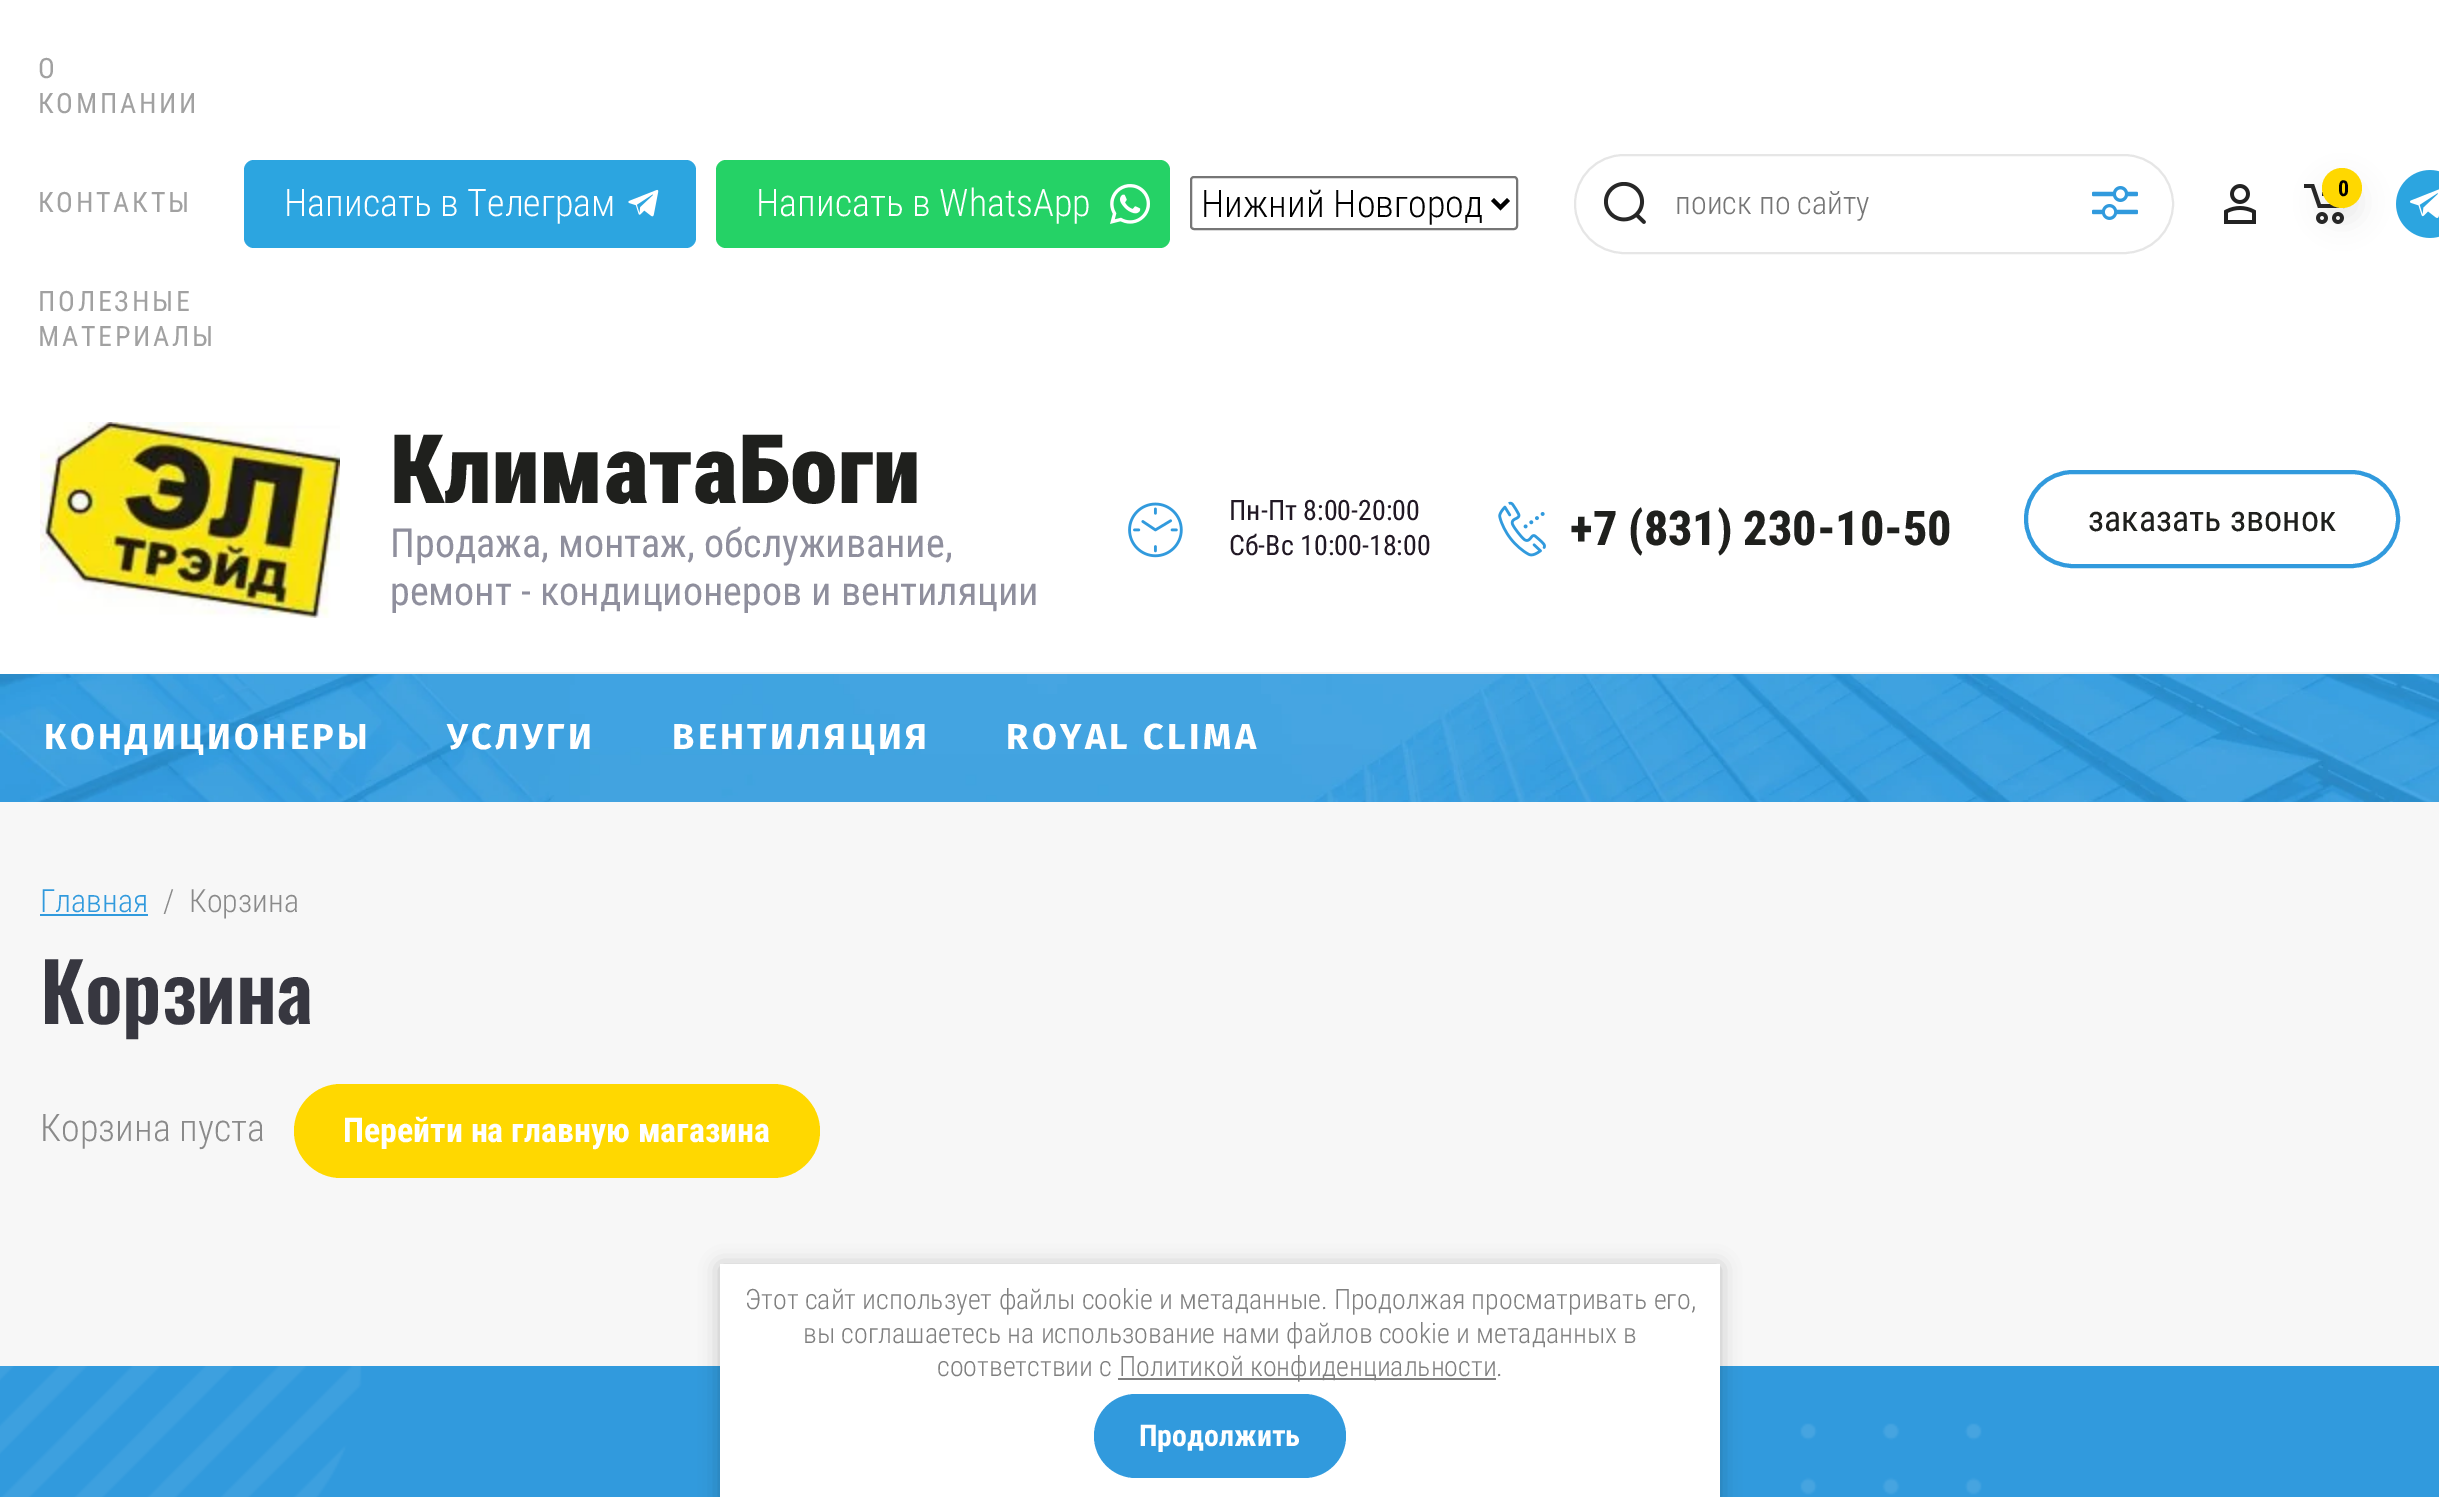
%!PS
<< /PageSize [2439 1497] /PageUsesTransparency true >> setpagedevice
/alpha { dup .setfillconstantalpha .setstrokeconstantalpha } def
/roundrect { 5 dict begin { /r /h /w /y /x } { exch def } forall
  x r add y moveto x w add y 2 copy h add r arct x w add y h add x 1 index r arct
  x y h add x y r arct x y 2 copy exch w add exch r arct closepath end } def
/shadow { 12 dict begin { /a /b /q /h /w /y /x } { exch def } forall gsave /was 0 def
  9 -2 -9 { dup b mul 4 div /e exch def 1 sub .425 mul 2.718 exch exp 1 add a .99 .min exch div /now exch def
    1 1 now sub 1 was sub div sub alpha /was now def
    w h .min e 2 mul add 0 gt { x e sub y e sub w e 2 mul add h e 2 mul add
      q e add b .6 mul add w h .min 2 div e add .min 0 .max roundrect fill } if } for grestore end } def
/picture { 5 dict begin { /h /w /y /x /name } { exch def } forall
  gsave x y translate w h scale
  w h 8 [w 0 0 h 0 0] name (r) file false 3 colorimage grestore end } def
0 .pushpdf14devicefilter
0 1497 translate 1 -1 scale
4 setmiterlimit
0.969 setgray
0 0 2439 1497 rectfill
1 setgray
0 0 2439 674 rectfill
/RobotoCondensed-Regular [28 0 0 -28 0 0] selectfont
0.631 setgray
38 78 moveto 2.75 0 (О) ashow
38 113 moveto 2.75 0 (КОМПАНИИ) ashow
38 212 moveto 2.75 0 (КОНТАКТЫ) ashow
38 311 moveto 2.75 0 (ПОЛЕЗНЫЕ) ashow
38 346 moveto 2.75 0 (МАТЕРИАЛЫ) ashow
0.173 0.647 0.878 setrgbcolor
244 160 452 88 10 roundrect fill
(img1.rgb) 628 189 31 28 picture
/RobotoCondensed-Light [38 0 0 -38 0 0] selectfont
1 setgray
284 216 moveto (Написать в Телеграм) show
0.145 0.824 0.4 setrgbcolor
716 160 454 88 10 roundrect fill
(img2.rgb) 1110 184 40 40 picture
1 setgray
756 216 moveto (Написать в WhatsApp) show
0.463 setgray
2 setlinewidth
1191 177 326 52 3 roundrect stroke
0 setgray
4 setlinewidth
newpath 1492.5 199.5 moveto 1500.5 207.5 lineto 1508.5 199.5 lineto stroke
1201 217 moveto (Нижний Новгород) show
0.902 setgray
2 setlinewidth
1575 155 598 98 49 roundrect stroke
(img3.rgb) 1604 182 42 42 picture
/RobotoCondensed-Light [32 0 0 -32 0 0] selectfont
0.459 setgray
1675 214 moveto (поиск по сайту) show
(img4.rgb) 2092 186 46 34 picture
(img5.rgb) 2224 184 32 40 picture
(img6.rgb) 2304 184 41 40 picture
(img7.rgb) 2396 170 43 68 picture
0 setgray
2322 182 40 40 20 13 0.07 shadow
1 0.847 0 setrgbcolor
newpath 2342 188 20 0 360 arc closepath fill
/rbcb-Bold [22 0 0 -22 0 0] selectfont
0 setgray
2338 196 moveto (0) show
0.949 setgray
40 672 2360 2 rectfill
(img8.rgb) 40 422 300 196 picture
/RobotoCondensed-Black [96 0 0 -96 0 0] selectfont
0.122 0.125 0.114 setrgbcolor
390 503 moveto (КлиматаБоги) show
/RobotoCondensed-Regular [40 0 0 -40 0 0] selectfont
0.561 0.561 0.616 setrgbcolor
390 557 moveto (Продажа, монтаж, обслуживание,) show
390 605 moveto (ремонт - кондиционеров и вентиляции) show
(img9.rgb) 1128 502 55 56 picture
/RobotoCondensed-Regular [28 0 0 -28 0 0] selectfont
0.129 0.094 0.141 setrgbcolor
1229 520 moveto (Пн-Пт 8:00-20:00) show
1229 555 moveto (Сб-Вс 10:00-18:00) show
(img10.rgb) 1498 501 48 56 picture
/RobotoCondensed-ExtraBold [48 0 0 -48 0 0] selectfont
0.122 0.125 0.114 setrgbcolor
1570 545 moveto (+7 \(831\) 230-10-50) show
0.192 0.604 0.867 setrgbcolor
4 setlinewidth
2026 472 372 94 47 roundrect stroke
/RobotoCondensed-Regular [36 0 0 -36 0 0] selectfont
0.122 0.125 0.114 setrgbcolor
2088 531 moveto (заказать звонок) show
(img11.rgb) 0 674 2439 128 picture
/FiraSans-Bold [36 0 0 -36 0 0] selectfont
1 setgray
44 749 moveto 3.4 0 (КОНДИЦИОНЕРЫ) ashow
447 749 moveto 3.4 0 (УСЛУГИ) ashow
672 749 moveto 3.4 0 (ВЕНТИЛЯЦИЯ) ashow
1006 749 moveto 3.4 0 (ROYAL CLIMA) ashow
/RobotoCondensed-Light [32 0 0 -32 0 0] selectfont
0.192 0.604 0.867 setrgbcolor
40 912 moveto (Главная) show
40 914 108 2 rectfill
0.541 setgray
163 912 moveto (/  Корзина) show
/Oswald-SemiBold [80 0 0 -80 0 0] selectfont
0.216 0.216 0.251 setrgbcolor
40 1024 moveto (Корзина) show
/RobotoCondensed-Light [38 0 0 -38 0 0] selectfont
0.541 setgray
40 1141 moveto (Корзина пуста) show
1 0.847 0 setrgbcolor
294 1084 526 94 47 roundrect fill
/rbcb-Bold [34 0 0 -34 0 0] selectfont
1 setgray
343 1142 moveto (Перейти на главную магазина) show
0.192 0.604 0.867 setrgbcolor
0 1366 2439 131 rectfill
(img12.rgb) 0 1366 1982 131 picture
0 setgray
720 1266 1000 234 0 10 0.23 shadow
1 setgray
720 1264 1000 233 rectfill
/RobotoCondensed-Light [28 0 0 -28 0 0] selectfont
0.502 setgray
745 1309 moveto (Этот сайт использует файлы cookie и метаданные. Продолжая просматривать его,) show
803 1343 moveto (вы соглашаетесь на использование нами файлов cookie и метаданных в) show
937 1376 moveto (соответствии с) show
1118 1378 378 2 rectfill
1119 1376 moveto (Политикой конфиденциальности.) show
0.192 0.604 0.867 setrgbcolor
1094 1394 252 84 42 roundrect fill
/rbcb-Bold [30 0 0 -30 0 0] selectfont
1 setgray
1139 1446 moveto (Продолжить) show
.poppdf14devicefilter showpage
